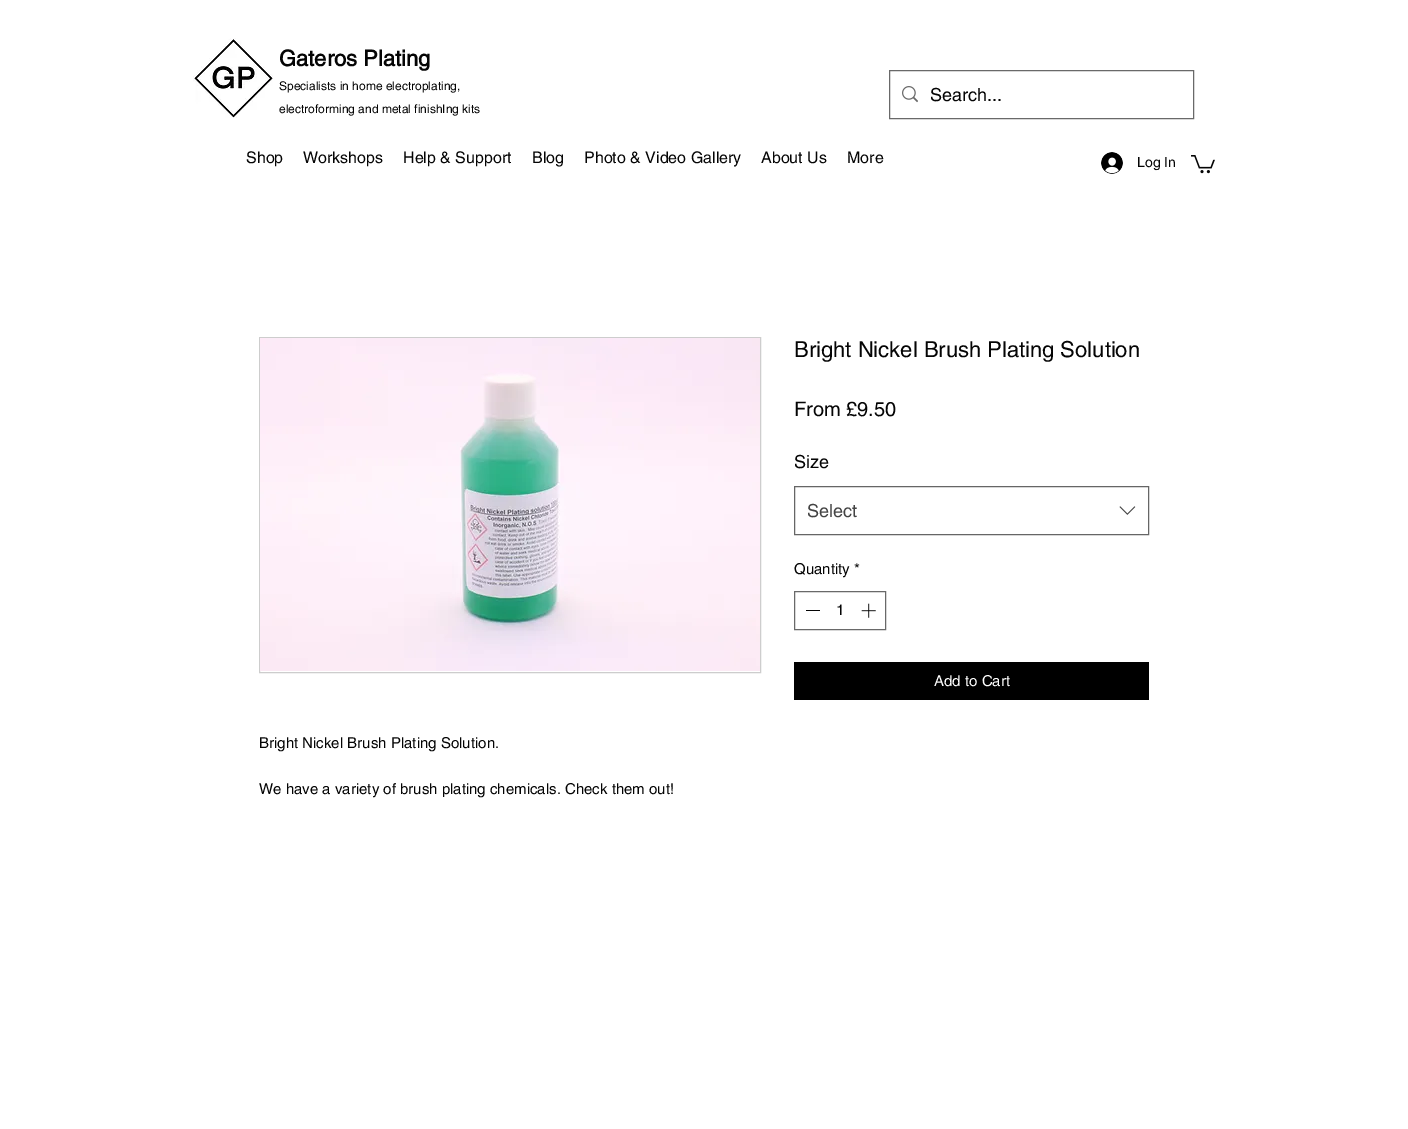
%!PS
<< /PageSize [1408 1129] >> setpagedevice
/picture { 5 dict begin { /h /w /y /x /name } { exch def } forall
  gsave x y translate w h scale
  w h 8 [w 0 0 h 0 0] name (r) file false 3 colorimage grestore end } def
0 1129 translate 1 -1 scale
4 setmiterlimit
1 setgray
0 0 1408 1129 rectfill
(img1.rgb) 193 38 80 80 picture
/helvetica-Bold [22 0 0 -22 0 0] selectfont
0.02 setgray
279 66 moveto (Gateros Plating) show
/helvetica-Regular [12 0 0 -12 0 0] selectfont
279 90 moveto (Specialists in home electroplating,) show
279 113 moveto (electroforming and metal finishIng kits) show
0.412 setgray
889.5 70.5 304 48 rectstroke
(img2.rgb) 902 86 16 17 picture
/helvetica-Regular [18 0 0 -18 0 0] selectfont
0.02 setgray
930 101 moveto (Search...) show
/helvetica-Regular [16 0 0 -16 0 0] selectfont
246 163 moveto (Shop) show
303 163 moveto (Workshops) show
403 163 moveto (Help & Support) show
532 163 moveto (Blog) show
584 163 moveto (Photo & Video Gallery) show
761 163 moveto (About Us) show
847 163 moveto (More) show
(img3.rgb) 1101 152 22 22 picture
/helvetica-Regular [14 0 0 -14 0 0] selectfont
1137 167 moveto (Log In) show
(img4.rgb) 1191 155 24 19 picture
/helvetica-Regular [22 0 0 -22 0 0] selectfont
794 357 moveto (Bright Nickel Brush Plating Solution) show
/helvetica-Regular [20 0 0 -20 0 0] selectfont
794 416 moveto (From £9.50) show
/helvetica-Regular [18 0 0 -18 0 0] selectfont
794 468 moveto (Size) show
0.4 setgray
794.5 486.5 354 48 rectstroke
0.267 setgray
807 517 moveto (Select) show
(img5.rgb) 1119 506 17 9 picture
/helvetica-Regular [15 0 0 -15 0 0] selectfont
0.02 setgray
794 574 moveto (Quantity *) show
0.412 setgray
794.5 591.5 91 38 rectstroke
0.02 setgray
806 610 14 1 rectfill
836 615 moveto (1) show
(img6.rgb) 861 603 15 15 picture
0 setgray
794 662 355 38 rectfill
1 setgray
934 686 moveto (Add to Cart) show
0.804 setgray
259.5 337.5 501 335 rectstroke
(img7.rgb) 260 338 500 333 picture
0.02 setgray
259 748 moveto (Bright Nickel Brush Plating Solution.) show
259 794 moveto (We have a variety of brush plating chemicals. Check them out!) show
showpage
